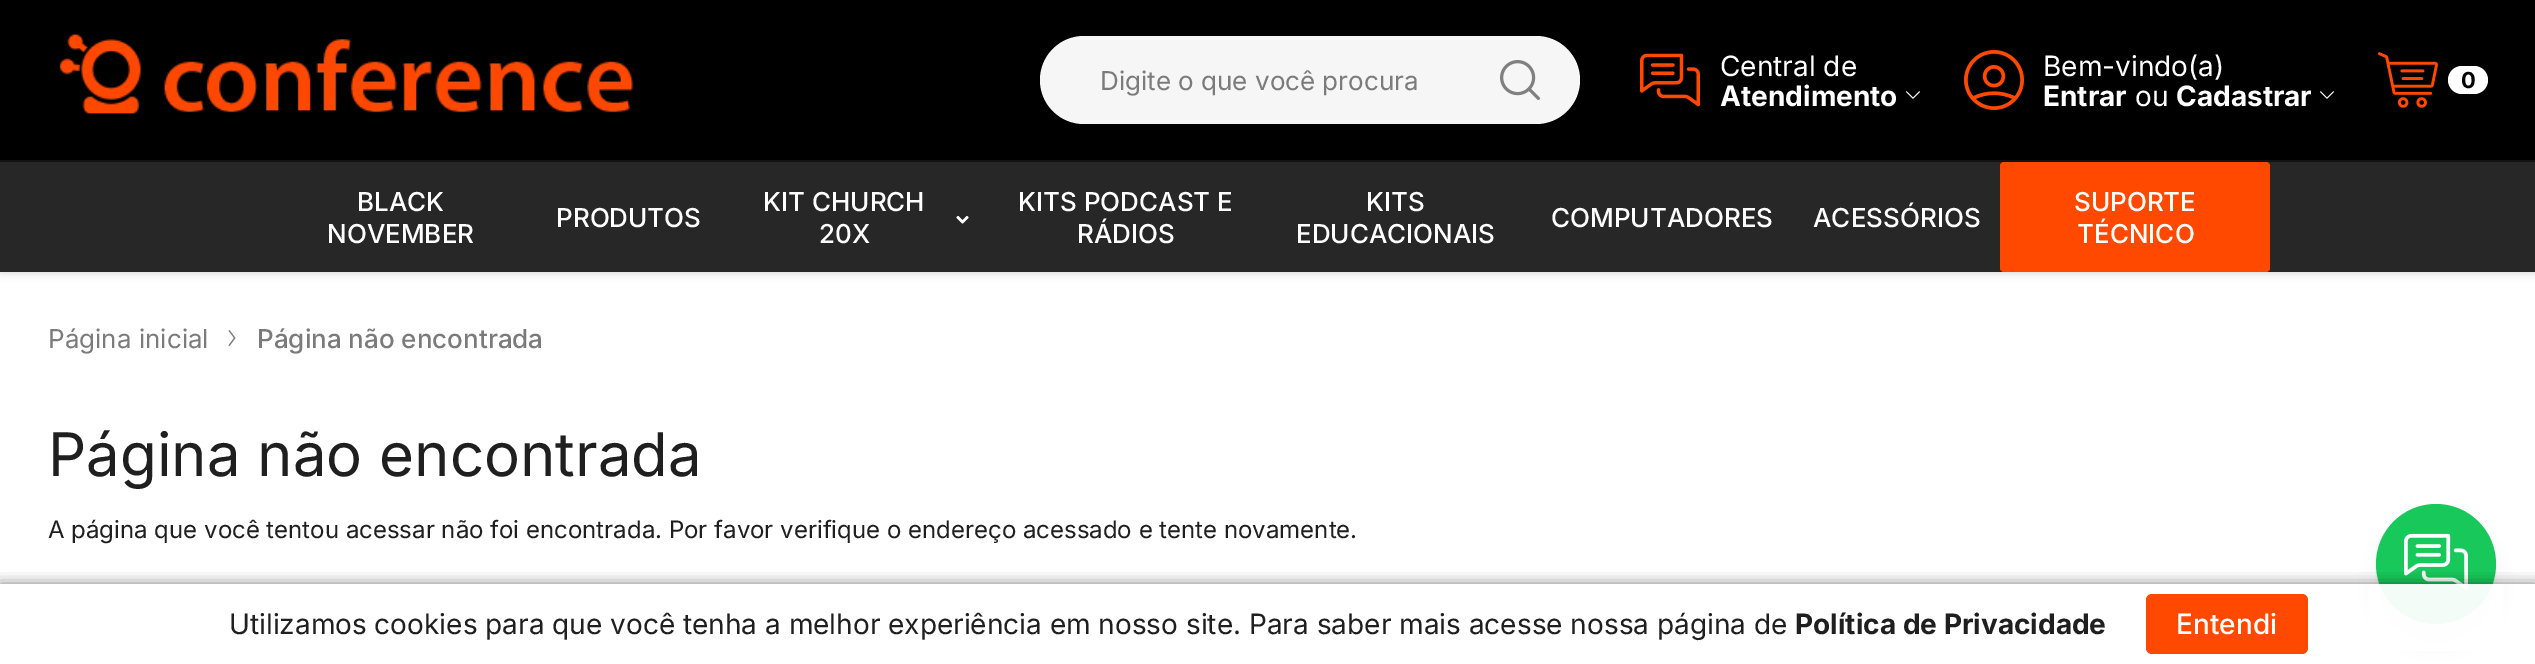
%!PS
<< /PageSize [2535 664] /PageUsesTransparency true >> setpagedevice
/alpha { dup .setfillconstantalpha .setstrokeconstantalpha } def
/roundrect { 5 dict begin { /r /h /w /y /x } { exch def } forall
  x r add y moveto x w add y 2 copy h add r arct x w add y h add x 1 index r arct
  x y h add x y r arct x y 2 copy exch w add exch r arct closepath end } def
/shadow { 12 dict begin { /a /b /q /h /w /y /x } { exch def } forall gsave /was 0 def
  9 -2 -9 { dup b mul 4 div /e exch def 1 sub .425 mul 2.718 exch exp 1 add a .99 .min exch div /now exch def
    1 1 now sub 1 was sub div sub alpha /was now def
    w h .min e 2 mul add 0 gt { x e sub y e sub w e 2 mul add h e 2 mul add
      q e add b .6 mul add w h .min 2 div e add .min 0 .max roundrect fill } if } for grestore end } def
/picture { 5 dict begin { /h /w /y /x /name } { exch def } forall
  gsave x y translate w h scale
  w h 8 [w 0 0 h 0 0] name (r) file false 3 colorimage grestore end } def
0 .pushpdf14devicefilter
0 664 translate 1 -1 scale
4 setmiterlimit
1 setgray
0 0 2535 664 rectfill
0.322 setgray
0 164 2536 110 0 4 0.2 shadow
0 setgray
0 0 2535 160 rectfill
0.075 setgray
0 160 2535 2 rectfill
(img1.rgb) 59 34 575 80 picture
0.965 setgray
1040 36 540 88 44 roundrect fill
/Inter-Regular [26 0 0 -26 0 0] selectfont
0.482 setgray
1100 90 moveto (Digite o que você procura) show
(img2.rgb) 1500 60 40 40 picture
(img3.rgb) 1640 53 60 54 picture
/Inter-Regular [28 0 0 -28 0 0] selectfont
1 setgray
1720 76 moveto (Central de) show
/Inter-Bold [28 0 0 -28 0 0] selectfont
1720 106 moveto (Atendimento) show
(img4.rgb) 1906 91 14 8 picture
(img5.rgb) 1964 50 60 60 picture
/Inter-Regular [28 0 0 -28 0 0] selectfont
2043 76 moveto (Bem-vindo\(a\)) show
/Inter-Bold [28 0 0 -28 0 0] selectfont
2043 106 moveto (Entrar) show
/Inter-Regular [28 0 0 -28 0 0] selectfont
2135 106 moveto (ou) show
/Inter-Bold [28 0 0 -28 0 0] selectfont
2176 106 moveto (Cadastrar) show
(img4.rgb) 2320 91 14 8 picture
(img6.rgb) 2378 52 60 56 picture
2448 66 40 28 14 roundrect fill
/Inter-Bold [22 0 0 -22 0 0] selectfont
0 setgray
2461 88 moveto (0) show
0.153 setgray
0 162 2535 110 rectfill
/Inter-Medium [26 0 0 -26 0 0] selectfont
1 setgray
357 211 moveto (BLACK) show
327 243 moveto (NOVEMBER) show
556 227 moveto (PRODUTOS) show
763 211 moveto (KIT CHURCH) show
819 243 moveto (20X) show
(img7.rgb) 956 216 13 8 picture
1018 211 moveto (KITS PODCAST E) show
1077 243 moveto (RÁDIOS) show
1366 211 moveto (KITS) show
1296 243 moveto (EDUCACIONAIS) show
1551 227 moveto (COMPUTADORES) show
1813 227 moveto (ACESSÓRIOS) show
1 0.286 0.004 setrgbcolor
2000 162 270 110 4 roundrect fill
1 setgray
2074 211 moveto (SUPORTE) show
2077 243 moveto (TÉCNICO) show
/Inter-Regular [26 0 0 -26 0 0] selectfont
0.482 setgray
48 348 moveto (Página inicial) show
(img8.rgb) 228 330 8 16 picture
/Inter-Medium [26 0 0 -26 0 0] selectfont
257 348 moveto (Página não encontrada) show
/Inter-Regular [60 0 0 -60 0 0] selectfont
0.125 0.122 0.122 setrgbcolor
48 476 moveto (Página não encontrada) show
/Inter-Regular [24 0 0 -24 0 0] selectfont
48 538 moveto (A página que você tentou acessar não foi encontrada. Por favor verifique o endereço acessado e tente novamente.) show
0.404 setgray
2376 524 120 120 60 8 0.1 shadow
0 setgray
2376 508 120 120 60 1 0.04 shadow
0.094 0.784 0.353 setrgbcolor
newpath 2436 564 60 0 360 arc closepath fill
(img9.rgb) 2404 533 64 57 picture
gsave
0 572 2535 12 rectclip
0 setgray
0 584 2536 80 0 7 0.5 shadow
grestore
0.95 alpha
1 setgray
2369 584 134 67 rectfill
/Inter-Regular [28 0 0 -28 0 0] selectfont
1 alpha
0.125 0.122 0.122 setrgbcolor
229 634 moveto (Utilizamos cookies para que você tenha a melhor experiência em nosso site. Para saber mais acesse nossa página de) show
/Inter-Bold [28 0 0 -28 0 0] selectfont
1795 634 moveto (Política de Privacidade) show
1 0.286 0.004 setrgbcolor
2146 594 162 60 6 roundrect fill
/Inter-Medium [28 0 0 -28 0 0] selectfont
1 setgray
2176 634 moveto (Entendi) show
.poppdf14devicefilter showpage
